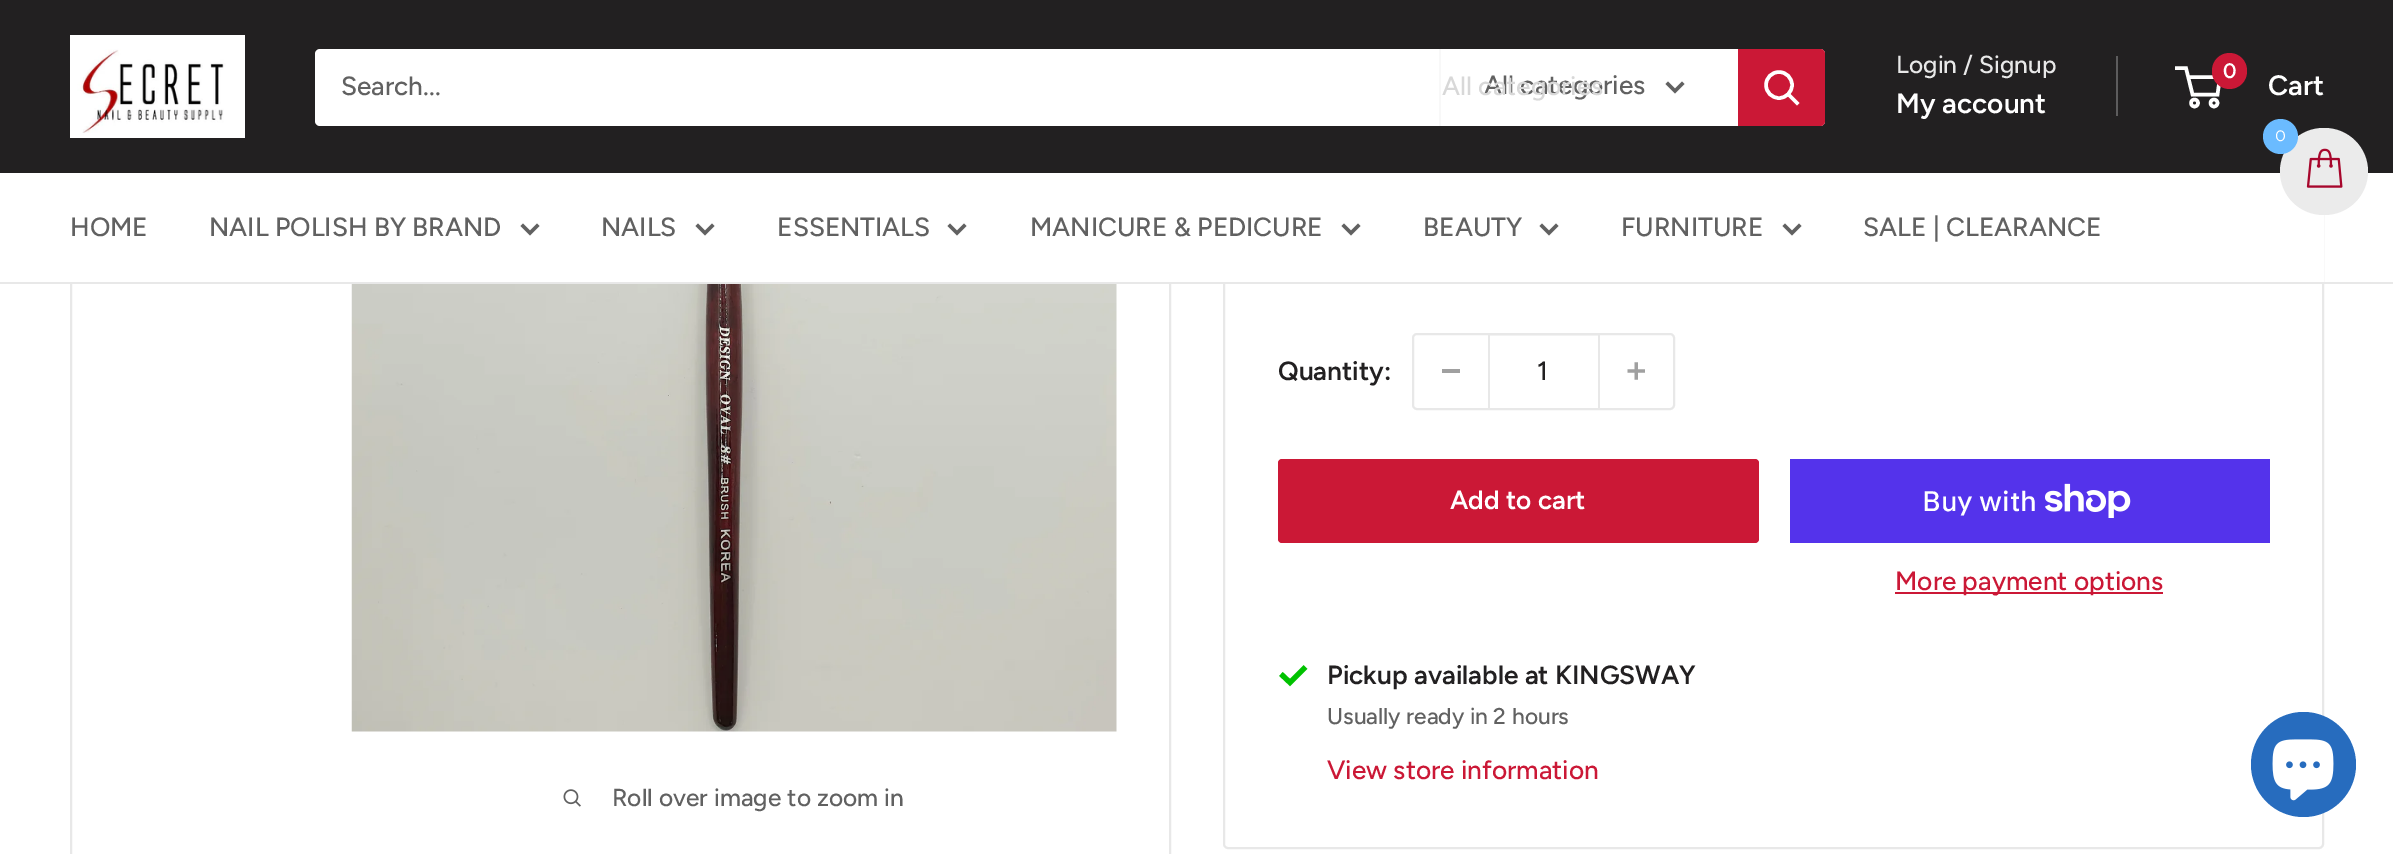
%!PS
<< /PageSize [2393 854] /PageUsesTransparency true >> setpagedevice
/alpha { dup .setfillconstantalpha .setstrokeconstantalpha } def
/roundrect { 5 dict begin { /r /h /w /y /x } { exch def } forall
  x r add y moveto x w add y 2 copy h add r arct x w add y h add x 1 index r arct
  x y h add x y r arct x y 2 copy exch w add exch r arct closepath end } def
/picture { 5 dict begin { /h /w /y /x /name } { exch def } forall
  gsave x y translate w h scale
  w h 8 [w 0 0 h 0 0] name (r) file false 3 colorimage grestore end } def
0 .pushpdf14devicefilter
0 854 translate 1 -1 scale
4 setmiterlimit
1 setgray
0 0 2393 854 rectfill
0.91 setgray
2 setlinewidth
1224 -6 1099 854 4 roundrect stroke
71 -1 1099 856 rectstroke
0.133 0.125 0.129 setrgbcolor
0 0 2393 173 rectfill
(img1.rgb) 70 35 175 103 picture
1 setgray
315 49 1510 77 5 roundrect fill
/Figtree-Medium [26.25 0 0 -26.25 0 0] selectfont
0.38 setgray
341 95 moveto (Search...) show
0.973 setgray
1439 49 2 77 rectfill
0.38 setgray
1484 94 moveto (All categories) show
3.5 setlinewidth
2 setlinecap
newpath 1682 84 moveto 1675 91 lineto 1668 84 lineto stroke
0.847 setgray
1442 95 moveto (All categories) show
0.796 0.094 0.212 setrgbcolor
newpath 1738 49 moveto 1820 49 lineto 1823 49 1825 51 1825 54 curveto 1825 121 lineto 1825 124 1823 126 1820 126 curveto 1738 126 lineto closepath fill
1 setgray
newpath 1797 103 moveto 1788.5 94.5 lineto stroke
0 setlinecap
newpath 1779 85 13 0 360 arc closepath stroke
/Figtree-Medium [24.5 0 0 -24.5 0 0] selectfont
0.91 setgray
1896 73 moveto (Login / Signup) show
0.365 0.361 0.365 setrgbcolor
2116 56 2 60 rectfill
/Figtree-SemiBold [28 0 0 -28 0 0] selectfont
1 setgray
1896 113 moveto (My account) show
newpath 2194.5 103 3.5 0 360 arc closepath stroke
newpath 2214 103 3.5 0 360 arc closepath stroke
newpath 2188 77 moveto 2220 77 lineto 2217.5 94.5 lineto 2192.5 94.5 lineto 2186 68 lineto 2175 68 lineto stroke
0.796 0.094 0.212 setrgbcolor
2212 53 35 36 17.5 roundrect fill
/Figtree-SemiBold [21 0 0 -21 0 0] selectfont
1 setgray
2223 78 moveto (0) show
/Figtree-SemiBold [28 0 0 -28 0 0] selectfont
2268 95 moveto (Cart) show
70 173 2254 109 rectfill
0.91 setgray
0 282 2393 2 rectfill
/Figtree-Medium [26.25 0 0 -26.25 0 0] selectfont
0.38 setgray
70 236 moveto (HOME) show
209 236 moveto (NAIL POLISH BY BRAND) show
2 setlinecap
newpath 537 226 moveto 530 233 lineto 523 226 lineto stroke
601 236 moveto (NAILS) show
newpath 712 226 moveto 705 233 lineto 698 226 lineto stroke
777 236 moveto (ESSENTIALS) show
newpath 964 226 moveto 957 233 lineto 950 226 lineto stroke
1030 236 moveto (MANICURE & PEDICURE) show
newpath 1358 226 moveto 1351 233 lineto 1344 226 lineto stroke
1423 236 moveto (BEAUTY) show
newpath 1556 226 moveto 1549 233 lineto 1542 226 lineto stroke
1621 236 moveto (FURNITURE) show
newpath 1799 226 moveto 1792 233 lineto 1785 226 lineto stroke
1863 236 moveto (SALE | CLEARANCE) show
0.922 setgray
2280 128 88 87 43.5 roundrect fill
0.42 0.733 1 setrgbcolor
newpath 2280.5 136.5 17.5 0 360 arc closepath fill
/Raleway-Thin [18 0 0 -18 0 0] selectfont
1 setgray
2275 141 moveto (0) show
(img2.rgb) 2306 148 37 40 picture
/Figtree-SemiBold [26.25 0 0 -26.25 0 0] selectfont
0.133 0.125 0.129 setrgbcolor
1278 380 moveto (Quantity:) show
0.91 setgray
2 setlinewidth
0 setlinecap
1413 334 261 75 4 roundrect stroke
0.627 setgray
1442 369 18 4 rectfill
0.4 alpha
0.91 setgray
1489 335 109 1 rectfill
1 alpha
1598 334 2 74 rectfill
1488 334 2 74 rectfill
/Figtree-Medium [26.25 0 0 -26.25 0 0] selectfont
0.133 0.125 0.129 setrgbcolor
1537 380 moveto (1) show
(img3.rgb) 1627 362 18 18 picture
0.796 0.094 0.212 setrgbcolor
1278 459 481 84 4 roundrect fill
/Figtree-SemiBold [26.25 0 0 -26.25 0 0] selectfont
1 setgray
1450 509 moveto (Add to cart) show
0.329 0.2 0.922 setrgbcolor
1790 459 480 84 rectfill
/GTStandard-Medium [28 0 0 -28 0 0] selectfont
1 setgray
1922 511 moveto (Buy with) show
(img4.rgb) 2045 483 86 35 picture
0.796 0.094 0.212 setrgbcolor
1895 592 268 2 rectfill
/Figtree-Medium [26.25 0 0 -26.25 0 0] selectfont
1895 590 moveto (More payment options) show
0 0.761 0 setrgbcolor
5.2 setlinewidth
newpath 1281 674 moveto 1290 682.5 lineto 1305.5 667 lineto stroke
/Figtree-SemiBold [26.25 0 0 -26.25 0 0] selectfont
0.133 0.125 0.129 setrgbcolor
1327 684 moveto (Pickup available at KINGSWAY) show
/Figtree-Medium [22.75 0 0 -22.75 0 0] selectfont
0.38 setgray
1327 724 moveto (Usually ready in 2 hours) show
/Figtree-Medium [26.25 0 0 -26.25 0 0] selectfont
0.796 0.094 0.212 setrgbcolor
1327 779 moveto (View store information) show
(img5.rgb) 351 284 766 448 picture
(img6.rgb) 563 789 18 18 picture
/Figtree-Medium [24.5 0 0 -24.5 0 0] selectfont
0.38 setgray
612 806 moveto (Roll over image to zoom in) show
0.153 0.424 0.745 setrgbcolor
newpath 2303.5 764.5 52.5 0 360 arc closepath fill
(img7.rgb) 2272 739 62 62 picture
.poppdf14devicefilter showpage
